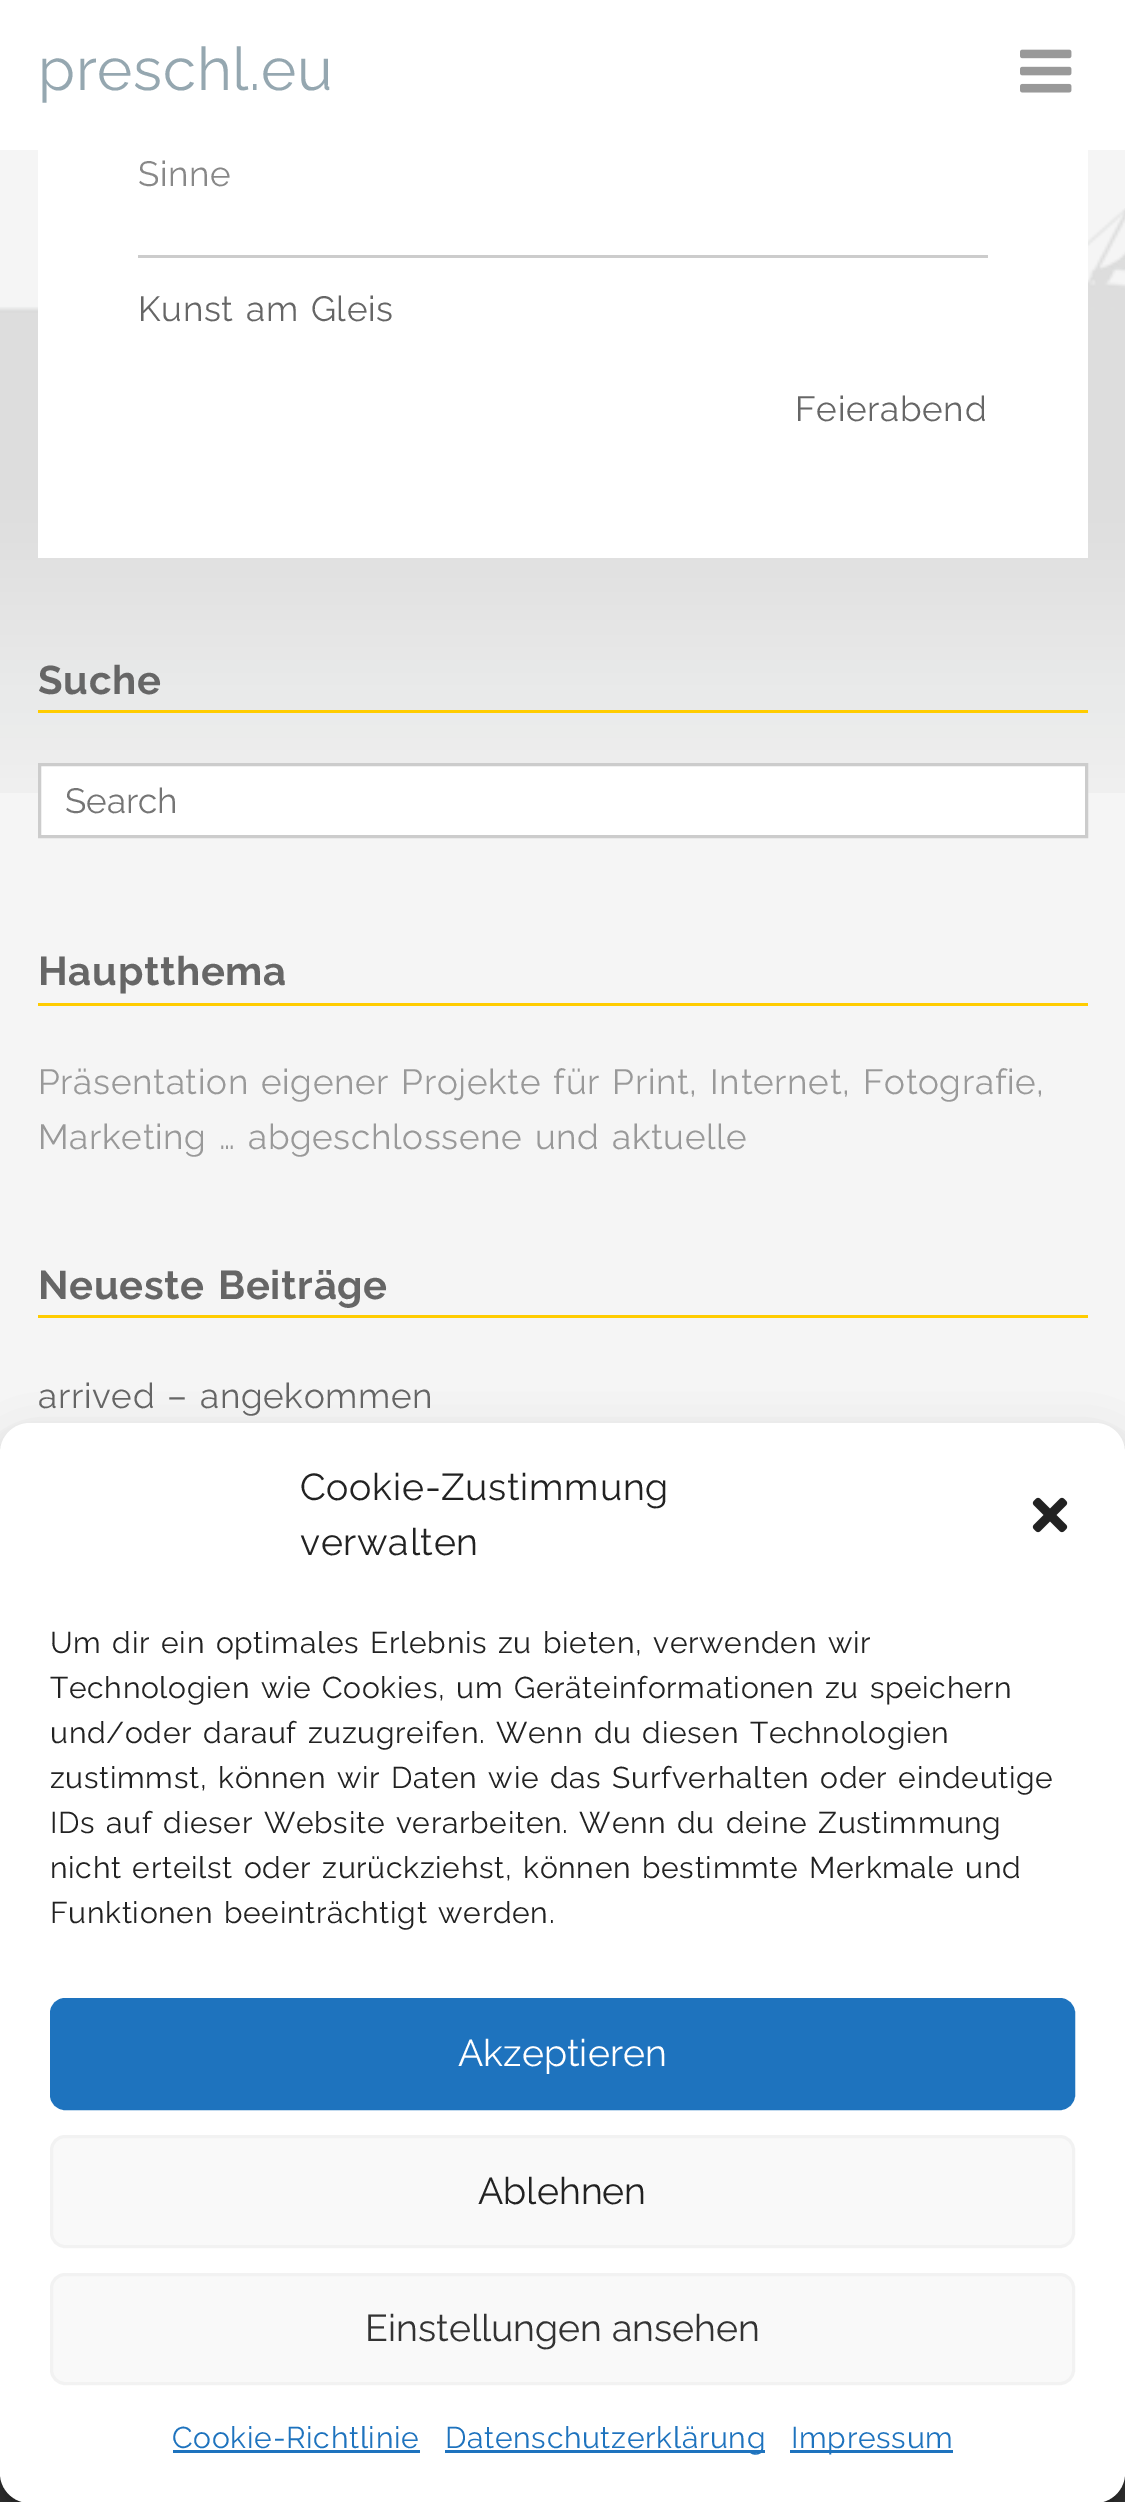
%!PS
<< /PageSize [1125 2502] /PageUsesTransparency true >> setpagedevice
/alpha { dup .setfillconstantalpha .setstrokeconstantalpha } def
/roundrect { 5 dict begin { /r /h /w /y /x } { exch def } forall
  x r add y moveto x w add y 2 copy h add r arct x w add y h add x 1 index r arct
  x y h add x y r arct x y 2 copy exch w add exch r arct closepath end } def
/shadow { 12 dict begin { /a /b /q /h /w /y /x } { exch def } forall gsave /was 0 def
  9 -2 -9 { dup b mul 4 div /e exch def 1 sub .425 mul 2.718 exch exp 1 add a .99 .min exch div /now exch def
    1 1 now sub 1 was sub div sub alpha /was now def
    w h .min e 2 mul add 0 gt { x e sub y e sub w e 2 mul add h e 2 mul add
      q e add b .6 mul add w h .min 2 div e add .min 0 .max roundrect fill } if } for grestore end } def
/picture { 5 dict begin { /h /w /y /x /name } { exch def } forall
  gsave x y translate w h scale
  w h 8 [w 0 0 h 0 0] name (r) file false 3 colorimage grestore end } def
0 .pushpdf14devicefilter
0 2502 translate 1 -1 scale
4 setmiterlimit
0.961 setgray
0 0 1125 2502 rectfill
(img1.rgb) 0 208 1125 585 picture
1 setgray
0 0 1125 150 rectfill
/Raleway-Regular [60 0 0 -60 0 0] selectfont
0.584 0.655 0.69 setrgbcolor
38 90 moveto 0.7 0 (preschl.eu) ashow
(img2.rgb) 1020 49 52 44 picture
1 setgray
38 150 1050 408 rectfill
/Raleway-Regular [35 0 0 -35 0 0] selectfont
0.533 setgray
138 186 moveto 0.7 0 (Sinne) ashow
0.8 setgray
138 255 850 3 rectfill
0.4 setgray
138 321 moveto 2.5 0 32 0.7 0 (Kunst am Gleis) awidthshow
795 421 moveto 0.7 0 (Feierabend) ashow
1 0.8 0 setrgbcolor
38 710 1050 3 rectfill
/Raleway-Bold [40 0 0 -40 0 0] selectfont
0.4 setgray
38 694 moveto 0.7 0 (Suche) ashow
1 setgray
newpath 39.5 764.5 moveto 1086.5 764.5 lineto 1086.5 836.5 lineto 39.5 836.5 lineto closepath gsave fill grestore
0.8 setgray
3 setlinewidth
stroke
/Raleway-Regular [35 0 0 -35 0 0] selectfont
0.459 setgray
65 813 moveto (Search) show
1 0.8 0 setrgbcolor
38 1003 1050 3 rectfill
/Raleway-Bold [40 0 0 -40 0 0] selectfont
0.4 setgray
38 985 moveto 0.7 0 (Hauptthema) ashow
/Raleway-Regular [35 0 0 -35 0 0] selectfont
0.6 setgray
38 1094 moveto 2.5 0 32 0.7 0 (Präsentation eigener Projekte für Print, Internet, Fotografie,) awidthshow
38 1149 moveto 2.5 0 32 0.7 0 (Marketing … abgeschlossene und aktuelle) awidthshow
1 0.8 0 setrgbcolor
38 1315 1050 3 rectfill
/Raleway-Bold [40 0 0 -40 0 0] selectfont
0.4 setgray
38 1299 moveto 2.5 0 32 0.7 0 (Neueste Beiträge) awidthshow
/Raleway-Regular [35 0 0 -35 0 0] selectfont
38 1408 moveto 2.5 0 32 0.7 0 (arrived – angekommen) awidthshow
0.2 setgray
0 2473 1125 29 rectfill
0 setgray
0 1438 1125 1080 30 7.5 0.23 shadow
0 1448 1125 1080 30 25 0.19 shadow
1 setgray
0 1423 1125 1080 30 roundrect fill
/Raleway-Regular [37.5 0 0 -37.5 0 0] selectfont
0.133 setgray
300 1500 moveto 0.7 0 (Cookie-Zustimmung) ashow
300 1555 moveto 0.7 0 (verwalten) ashow
(img3.rgb) 1032 1497 36 36 picture
/Raleway-Regular [30 0 0 -30 0 0] selectfont
50 1653 moveto 2.5 0 32 0.7 0 (Um dir ein optimales Erlebnis zu bieten, verwenden wir) awidthshow
50 1698 moveto 2.5 0 32 0.7 0 (Technologien wie Cookies, um Geräteinformationen zu speichern) awidthshow
50 1743 moveto 2.5 0 32 0.7 0 (und/oder darauf zuzugreifen. Wenn du diesen Technologien) awidthshow
50 1788 moveto 2.5 0 32 0.7 0 (zustimmst, können wir Daten wie das Surfverhalten oder eindeutige) awidthshow
50 1833 moveto 2.5 0 32 0.7 0 (IDs auf dieser Website verarbeiten. Wenn du deine Zustimmung) awidthshow
50 1878 moveto 2.5 0 32 0.7 0 (nicht erteilst oder zurückziehst, können bestimmte Merkmale und) awidthshow
50 1923 moveto 2.5 0 32 0.7 0 (Funktionen beeinträchtigt werden.) awidthshow
0.118 0.451 0.745 setrgbcolor
51.5 1999.5 1022 109 13.5 roundrect gsave fill grestore
stroke
/Raleway-Regular [37.5 0 0 -37.5 0 0] selectfont
1 setgray
458 2066 moveto (Akzeptieren) show
0.976 setgray
51.5 2136.5 1022 110 13.5 roundrect gsave fill grestore
0.949 setgray
stroke
0.133 setgray
478 2204 moveto (Ablehnen) show
0.976 setgray
51.5 2274.5 1022 109 13.5 roundrect gsave fill grestore
0.949 setgray
stroke
0.2 setgray
365 2341 moveto (Einstellungen ansehen) show
/Raleway-Regular [30 0 0 -30 0 0] selectfont
0.118 0.451 0.745 setrgbcolor
172 2448 moveto 0.7 0 (Cookie-Richtlinie) ashow
173 2450 247 3 rectfill
445 2450 320 3 rectfill
445 2448 moveto 0.7 0 (Datenschutzerklärung) ashow
790 2450 163 3 rectfill
791 2448 moveto 0.7 0 (Impressum) ashow
.poppdf14devicefilter showpage
